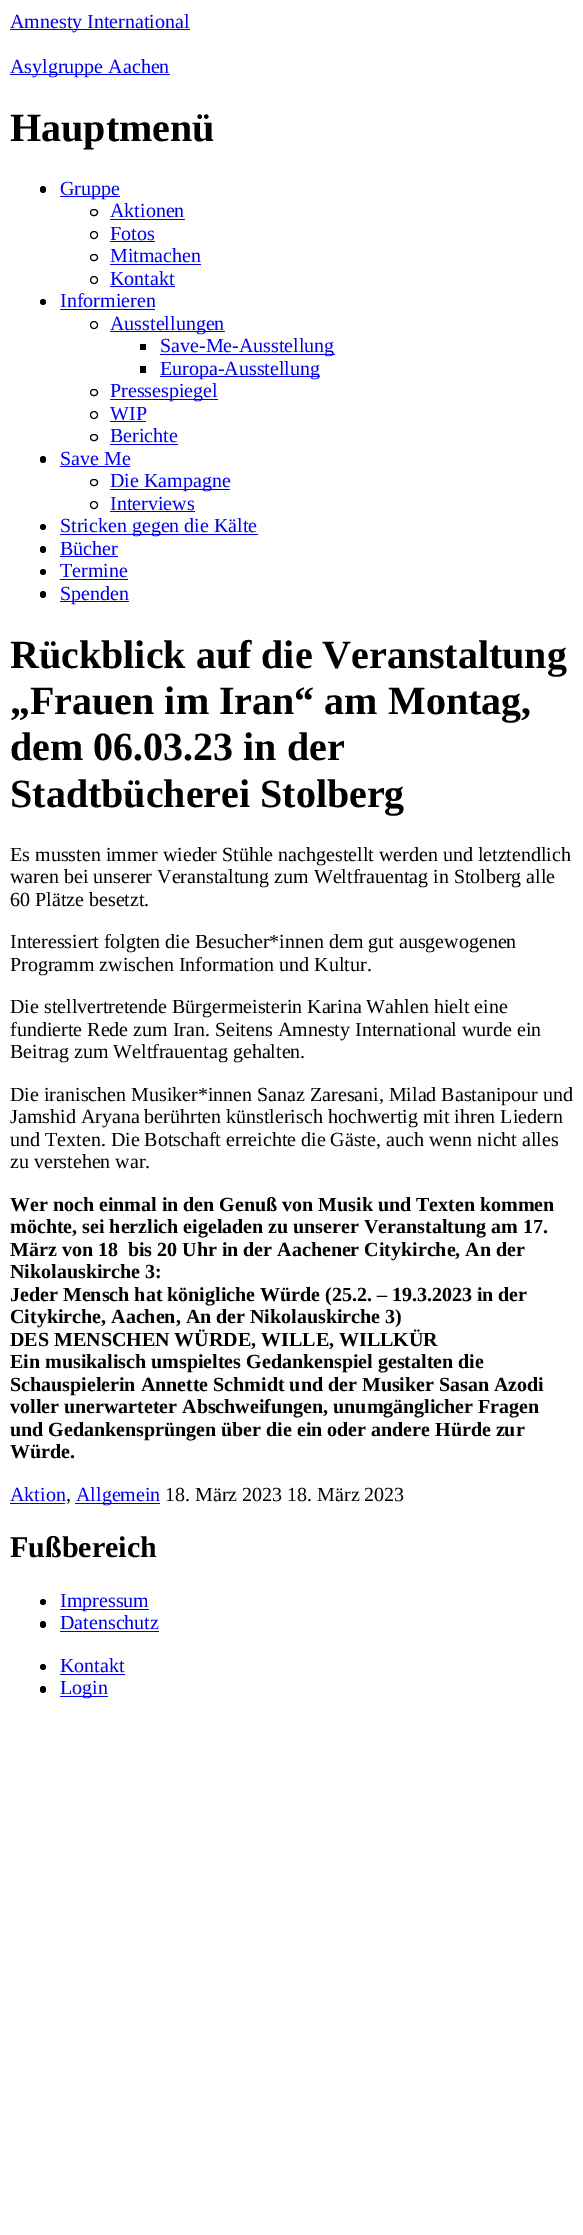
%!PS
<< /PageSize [583 2235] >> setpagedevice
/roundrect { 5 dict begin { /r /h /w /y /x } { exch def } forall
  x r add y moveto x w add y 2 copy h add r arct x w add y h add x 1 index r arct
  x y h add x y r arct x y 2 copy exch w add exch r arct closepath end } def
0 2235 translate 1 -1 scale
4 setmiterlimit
1 setgray
0 0 583 2235 rectfill
0 0 0.933 setrgbcolor
10 29 180 1 rectfill
/LiberationSerif-Regular [20 0 0 -20 0 0] selectfont
10 28 moveto (Amnesty International) show
10 74 160 1 rectfill
10 73 moveto (Asylgruppe Aachen) show
/LiberationSerif-Bold [40 0 0 -40 0 0] selectfont
0 setgray
10 141 moveto (Hauptmenü) show
40 186 6 7 3 roundrect fill
0 0 0.933 setrgbcolor
60 196 60 1 rectfill
/LiberationSerif-Regular [20 0 0 -20 0 0] selectfont
60 195 moveto (Gruppe) show
0 setgray
90.5 209.5 7 6 3 roundrect stroke
0 0 0.933 setrgbcolor
110 217 moveto (Aktionen) show
110 219 75 1 rectfill
0 setgray
newpath 94 235 3.5 0 360 arc closepath stroke
0 0 0.933 setrgbcolor
110 240 moveto (Fotos) show
110 241 45 1 rectfill
0 setgray
90.5 254.5 7 6 3 roundrect stroke
0 0 0.933 setrgbcolor
110 262 moveto (Mitmachen) show
110 264 91 1 rectfill
0 setgray
newpath 94 280 3.5 0 360 arc closepath stroke
0 0 0.933 setrgbcolor
110 285 moveto (Kontakt) show
110 286 65 1 rectfill
0 setgray
newpath 43 302 3 0 360 arc closepath fill
0 0 0.933 setrgbcolor
60 307 moveto (Informieren) show
60 309 95 1 rectfill
0 setgray
newpath 94 325 3.5 0 360 arc closepath stroke
0 0 0.933 setrgbcolor
110 331 115 1 rectfill
110 330 moveto (Ausstellungen) show
0 setgray
140 344 6 6 rectfill
0 0 0.933 setrgbcolor
160 354 175 1 rectfill
160 352 moveto (Save-Me-Ausstellung) show
0 setgray
140 366 6 7 rectfill
0 0 0.933 setrgbcolor
160 376 160 1 rectfill
160 375 moveto (Europa-Ausstellung) show
0 setgray
90.5 389.5 7 6 3 roundrect stroke
0 0 0.933 setrgbcolor
110 399 108 1 rectfill
110 397 moveto (Pressespiegel) show
0 setgray
newpath 94 415 3.5 0 360 arc closepath stroke
0 0 0.933 setrgbcolor
110 420 moveto (WIP) show
110 421 36 1 rectfill
0 setgray
90.5 434.5 7 6 3 roundrect stroke
0 0 0.933 setrgbcolor
110 442 moveto (Berichte) show
110 444 68 1 rectfill
0 setgray
40 456 6 7 3 roundrect fill
0 0 0.933 setrgbcolor
60 465 moveto (Save Me) show
60 466 70 1 rectfill
0 setgray
90.5 479.5 7 6 3 roundrect stroke
0 0 0.933 setrgbcolor
110 489 120 1 rectfill
110 487 moveto (Die Kampagne) show
0 setgray
newpath 94 505 3.5 0 360 arc closepath stroke
0 0 0.933 setrgbcolor
110 510 moveto (Interviews) show
110 511 85 1 rectfill
0 setgray
newpath 43 527 3 0 360 arc closepath fill
0 0 0.933 setrgbcolor
60 534 198 1 rectfill
60 532 moveto (Stricken gegen die Kälte) show
0 setgray
40 546 6 7 3 roundrect fill
0 0 0.933 setrgbcolor
60 555 moveto (Bücher) show
60 556 58 1 rectfill
0 setgray
newpath 43 572 3 0 360 arc closepath fill
0 0 0.933 setrgbcolor
60 577 moveto (Termine) show
60 579 68 1 rectfill
0 setgray
40 591 6 7 3 roundrect fill
0 0 0.933 setrgbcolor
60 601 69 1 rectfill
60 600 moveto (Spenden) show
/LiberationSerif-Bold [40 0 0 -40 0 0] selectfont
0 setgray
10 668 moveto (Rückblick auf die Veranstaltung) show
10 714 moveto („Frauen im Iran“ am Montag,) show
10 760 moveto (dem 06.03.23 in der) show
10 807 moveto (Stadtbücherei Stolberg) show
/LiberationSerif-Regular [20 0 0 -20 0 0] selectfont
10 861 moveto (Es mussten immer wieder Stühle nachgestellt werden und letztendlich) show
10 883 moveto (waren bei unserer Veranstaltung zum Weltfrauentag in Stolberg alle) show
10 906 moveto (60 Plätze besetzt.) show
10 948 moveto (Interessiert folgten die Besucher*innen dem gut ausgewogenen) show
10 971 moveto (Programm zwischen Information und Kultur.) show
10 1013 moveto (Die stellvertretende Bürgermeisterin Karina Wahlen hielt eine) show
10 1036 moveto (fundierte Rede zum Iran. Seitens Amnesty International wurde ein) show
10 1058 moveto (Beitrag zum Weltfrauentag gehalten.) show
10 1101 moveto (Die iranischen Musiker*innen Sanaz Zaresani, Milad Bastanipour und) show
10 1123 moveto (Jamshid Aryana berührten künstlerisch hochwertig mit ihren Liedern) show
10 1146 moveto (und Texten. Die Botschaft erreichte die Gäste, auch wenn nicht alles) show
10 1168 moveto (zu verstehen war.) show
/LiberationSerif-Bold [20 0 0 -20 0 0] selectfont
10 1211 moveto (Wer noch einmal in den Genuß von Musik und Texten kommen) show
10 1233 moveto (möchte, sei herzlich eigeladen zu unserer Veranstaltung am 17.) show
10 1256 moveto (März von 18  bis 20 Uhr in der Aachener Citykirche, An der) show
10 1278 moveto (Nikolauskirche 3:) show
10 1301 moveto (Jeder Mensch hat königliche Würde \(25.2. – 19.3.2023 in der) show
10 1323 moveto (Citykirche, Aachen, An der Nikolauskirche 3\)) show
10 1346 moveto (DES MENSCHEN WÜRDE, WILLE, WILLKÜR) show
10 1368 moveto (Ein musikalisch umspieltes Gedankenspiel gestalten die) show
10 1391 moveto (Schauspielerin Annette Schmidt und der Musiker Sasan Azodi) show
10 1413 moveto (voller unerwarteter Abschweifungen, unumgänglicher Fragen) show
10 1436 moveto (und Gedankensprüngen über die ein oder andere Hürde zur) show
10 1458 moveto (Würde.) show
/LiberationSerif-Regular [20 0 0 -20 0 0] selectfont
0 0 0.933 setrgbcolor
10 1501 moveto (Aktion) show
0 setgray
66 1501 moveto (,) show
0 0 0.933 setrgbcolor
10 1503 55 1 rectfill
75 1503 85 1 rectfill
76 1501 moveto (Allgemein) show
0 setgray
165 1501 moveto (18. März 2023 18. März 2023) show
/LiberationSerif-Bold [30 0 0 -30 0 0] selectfont
10 1557 moveto (Fußbereich) show
newpath 43 1602 3 0 360 arc closepath fill
0 0 0.933 setrgbcolor
60 1609 89 1 rectfill
/LiberationSerif-Regular [20 0 0 -20 0 0] selectfont
60 1607 moveto (Impressum) show
0 setgray
40 1621 6 7 3 roundrect fill
0 0 0.933 setrgbcolor
60 1629 moveto (Datenschutz) show
60 1631 99 1 rectfill
0 setgray
newpath 43 1667 3 0 360 arc closepath fill
0 0 0.933 setrgbcolor
60 1672 moveto (Kontakt) show
60 1674 65 1 rectfill
0 setgray
40 1686 6 7 3 roundrect fill
0 0 0.933 setrgbcolor
60 1696 48 1 rectfill
60 1694 moveto (Login) show
showpage
